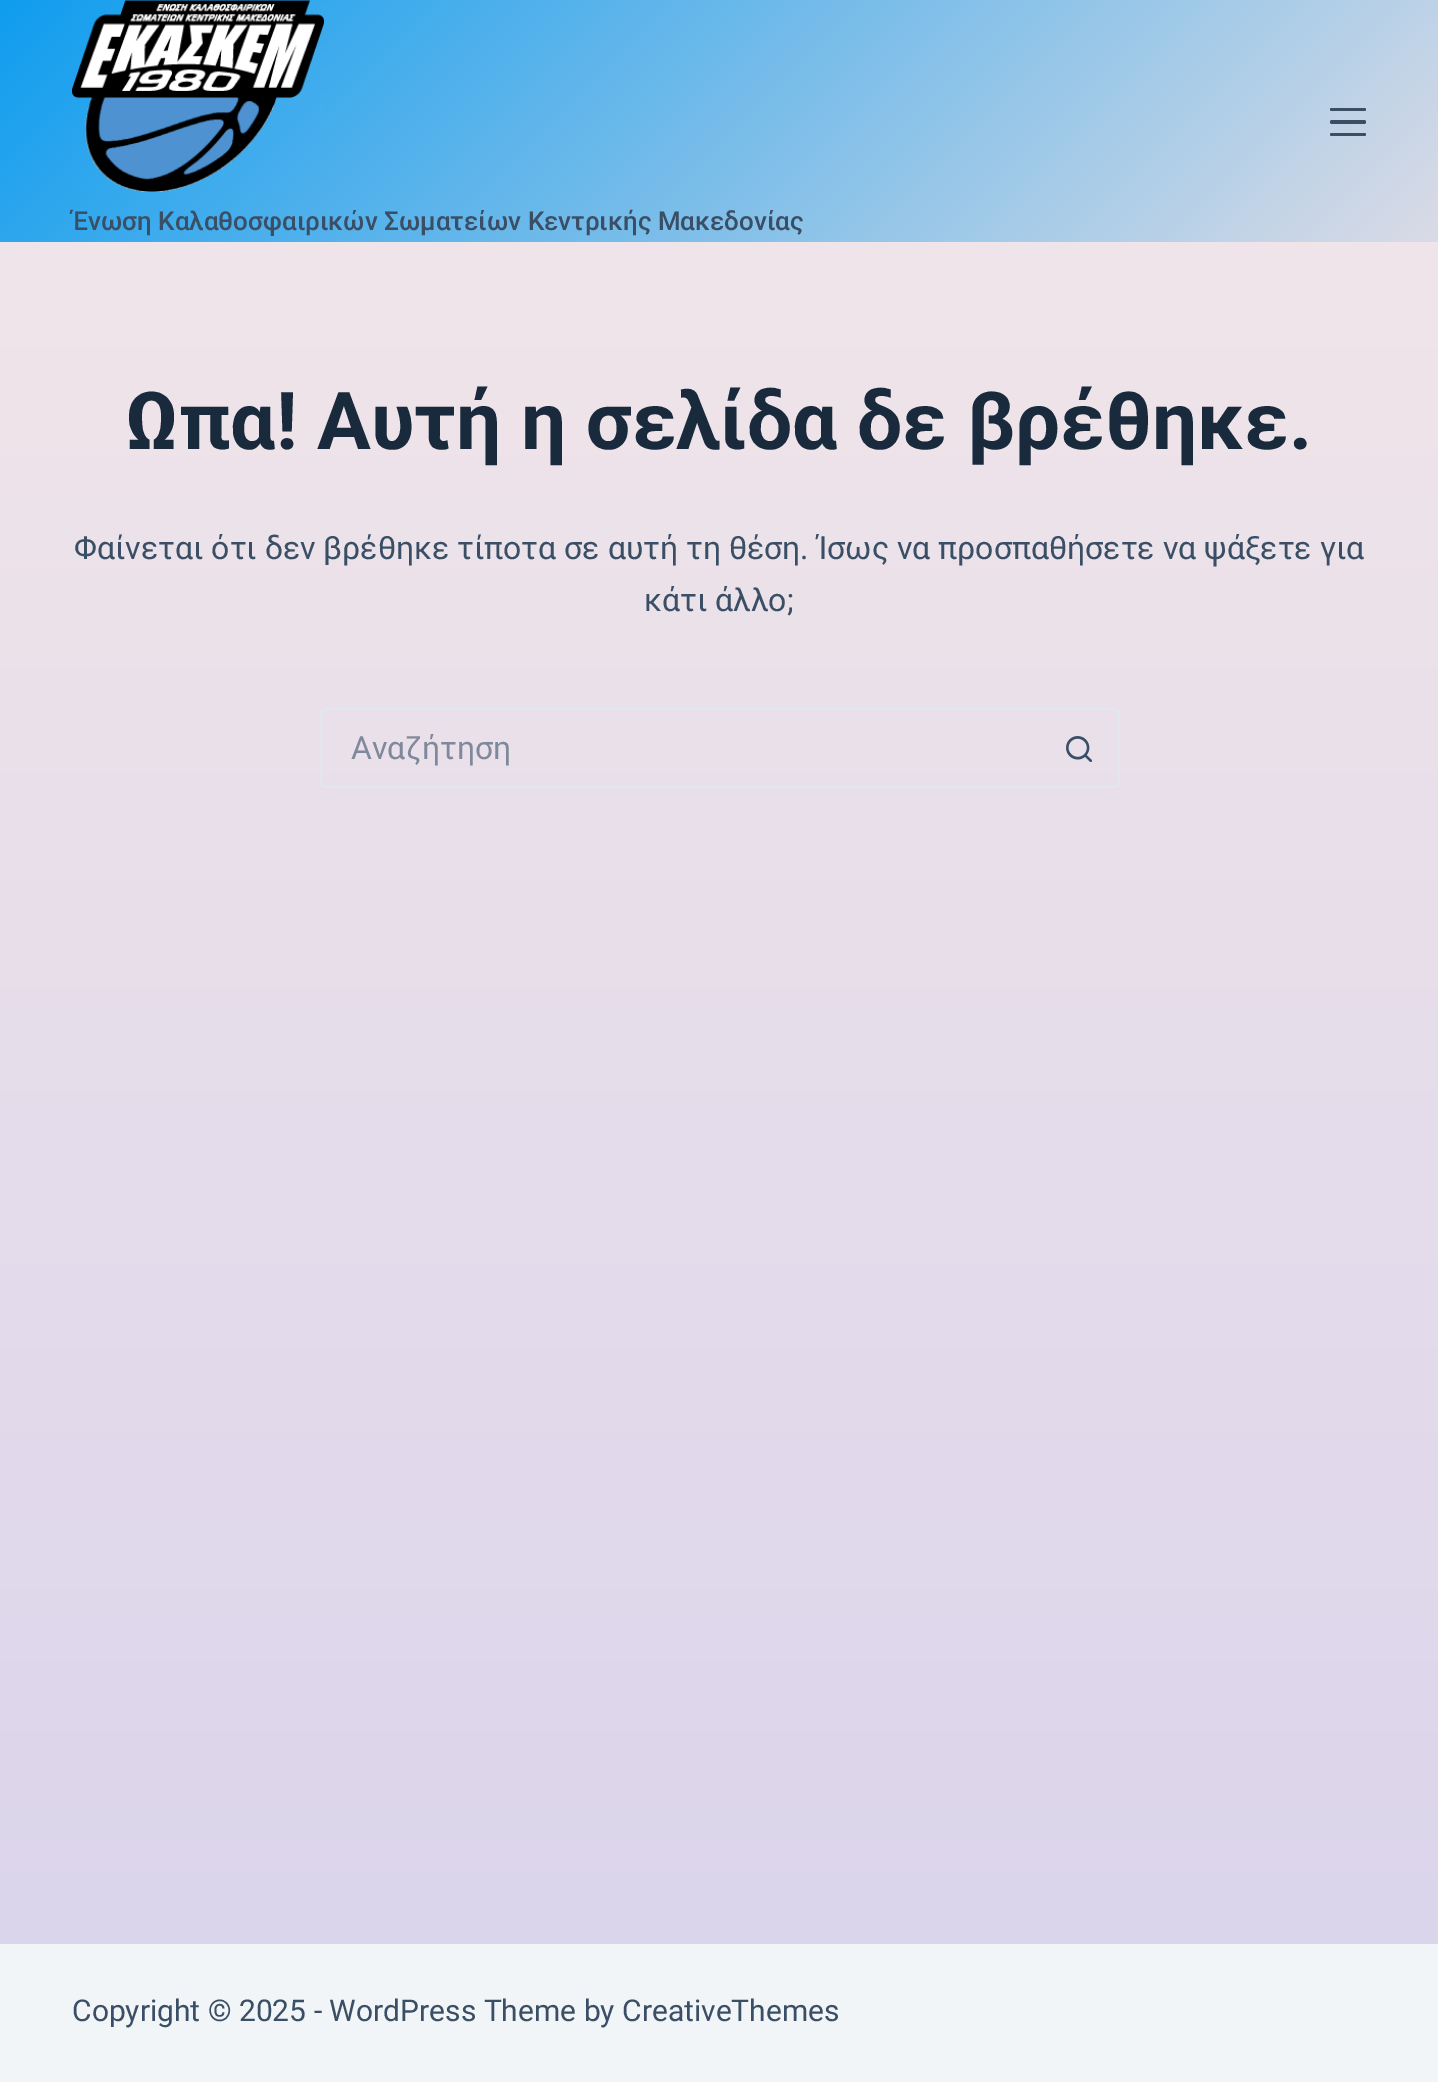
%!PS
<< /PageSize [1438 2082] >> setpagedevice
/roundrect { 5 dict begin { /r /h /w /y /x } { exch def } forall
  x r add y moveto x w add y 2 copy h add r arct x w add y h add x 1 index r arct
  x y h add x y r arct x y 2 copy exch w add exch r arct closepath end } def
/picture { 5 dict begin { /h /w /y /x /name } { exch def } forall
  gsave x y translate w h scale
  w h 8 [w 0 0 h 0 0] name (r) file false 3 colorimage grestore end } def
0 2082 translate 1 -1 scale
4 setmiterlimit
1 setgray
0 0 1438 2082 rectfill
gsave newpath 0 242 moveto 1438 242 lineto 1438 1944 lineto 0 1944 lineto closepath clip newpath
<< /ShadingType 2 /ColorSpace /DeviceRGB /Coords [719 2082 719 0] /Extend [true true] /Function << /FunctionType 3 /Domain [0 1] /Functions [<< /FunctionType 2 /Domain [0 1] /C0 [0.855 0.831 0.925] /C1 [0.855 0.831 0.925] /N 1 >> << /FunctionType 2 /Domain [0 1] /C0 [0.855 0.831 0.925] /C1 [0.953 0.906 0.914] /N 1 >>] /Bounds [0.01] /Encode [0 1 0 1] >> >> shfill grestore
gsave newpath 0 0 moveto 1438 0 lineto 1438 242 lineto 0 242 lineto closepath clip newpath
<< /ShadingType 2 /ColorSpace /DeviceRGB /Coords [299 -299 1139 541] /Extend [true true] /Function << /FunctionType 2 /Domain [0 1] /C0 [0.059 0.616 0.937] /C1 [0.859 0.859 0.902] /N 1 >> >> shfill grestore
0.227 0.31 0.4 setrgbcolor
1330 108 36 3 1.5 roundrect fill
1330 120 36 4 2 roundrect fill
1330 133 36 3 1.5 roundrect fill
(img1.rgb) 72 0 252 192 picture
/Roboto-Medium [26 0 0 -26 0 0] selectfont
72 230 moveto (Ένωση Καλαθοσφαιρικών Σωματείων Κεντρικής Μακεδονίας) show
/Roboto-Bold [80 0 0 -80 0 0] selectfont
0.098 0.165 0.239 setrgbcolor
125 449 moveto (Ωπα! Αυτή η σελίδα δε βρέθηκε.) show
/Roboto-Regular [32 0 0 -32 0 0] selectfont
0.227 0.31 0.4 setrgbcolor
74 559 moveto (Φαίνεται ότι δεν βρέθηκε τίποτα σε αυτή τη θέση. Ίσως να προσπαθήσετε να ψάξετε για) show
644 611 moveto (κάτι άλλο;) show
0.882 0.91 0.929 setrgbcolor
newpath 326 708 moveto 1040 708 lineto 1040 788 lineto 326 788 lineto 323 788 320 785 320 782 curveto 320 714 lineto 320 711 323 708 326 708 curveto closepath 326 710 moveto 1040 710 lineto 1040 786 lineto 326 786 lineto 324 786 322 784 322 782 curveto 322 714 lineto 322 712 324 710 326 710 curveto closepath eofill
0.502 0.537 0.608 setrgbcolor
351 759 moveto (Αναζήτηση) show
0.882 0.91 0.929 setrgbcolor
newpath 1040 708 moveto 1114 708 lineto 1117 708 1120 711 1120 714 curveto 1120 782 lineto 1120 785 1117 788 1114 788 curveto 1040 788 lineto closepath 1040 710 moveto 1114 710 lineto 1116 710 1118 712 1118 714 curveto 1118 782 lineto 1118 784 1116 786 1114 786 curveto 1040 786 lineto closepath eofill
(img2.rgb) 1066 736 26 26 picture
0.949 0.961 0.969 setrgbcolor
0 1944 1438 138 rectfill
/Roboto-Regular [30 0 0 -30 0 0] selectfont
0.227 0.31 0.4 setrgbcolor
72 2021 moveto (Copyright © 2025 - WordPress Theme by CreativeThemes) show
showpage
